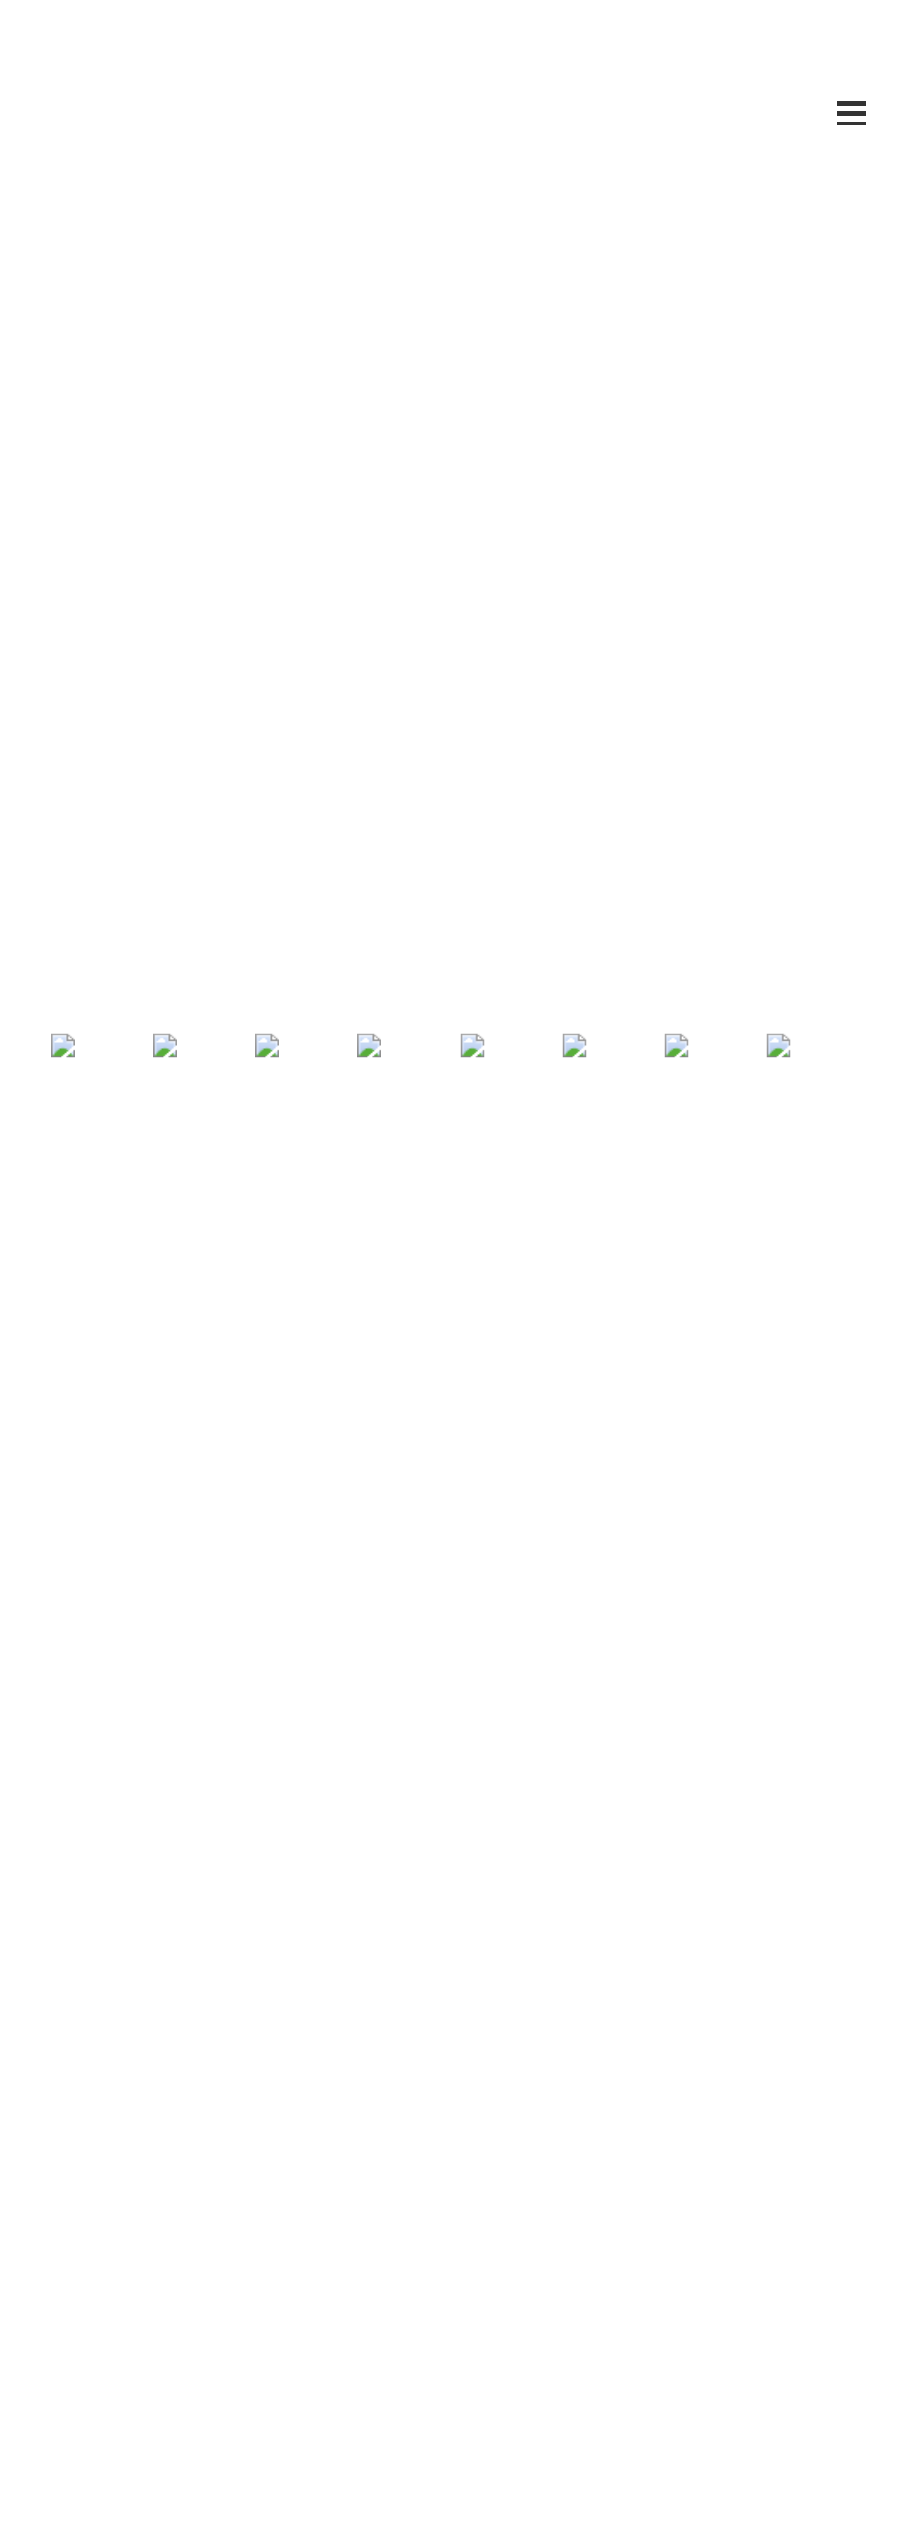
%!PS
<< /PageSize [913 2523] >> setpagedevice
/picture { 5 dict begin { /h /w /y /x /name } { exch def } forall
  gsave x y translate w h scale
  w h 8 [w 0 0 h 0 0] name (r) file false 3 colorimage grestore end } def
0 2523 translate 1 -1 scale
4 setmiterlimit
1 setgray
0 0 913 2523 rectfill
0.2 setgray
837 111 29 5 rectfill
837 101 29 5 rectfill
837 122 29 3 rectfill
(img1.rgb) 51 1033 740 25 picture
showpage
